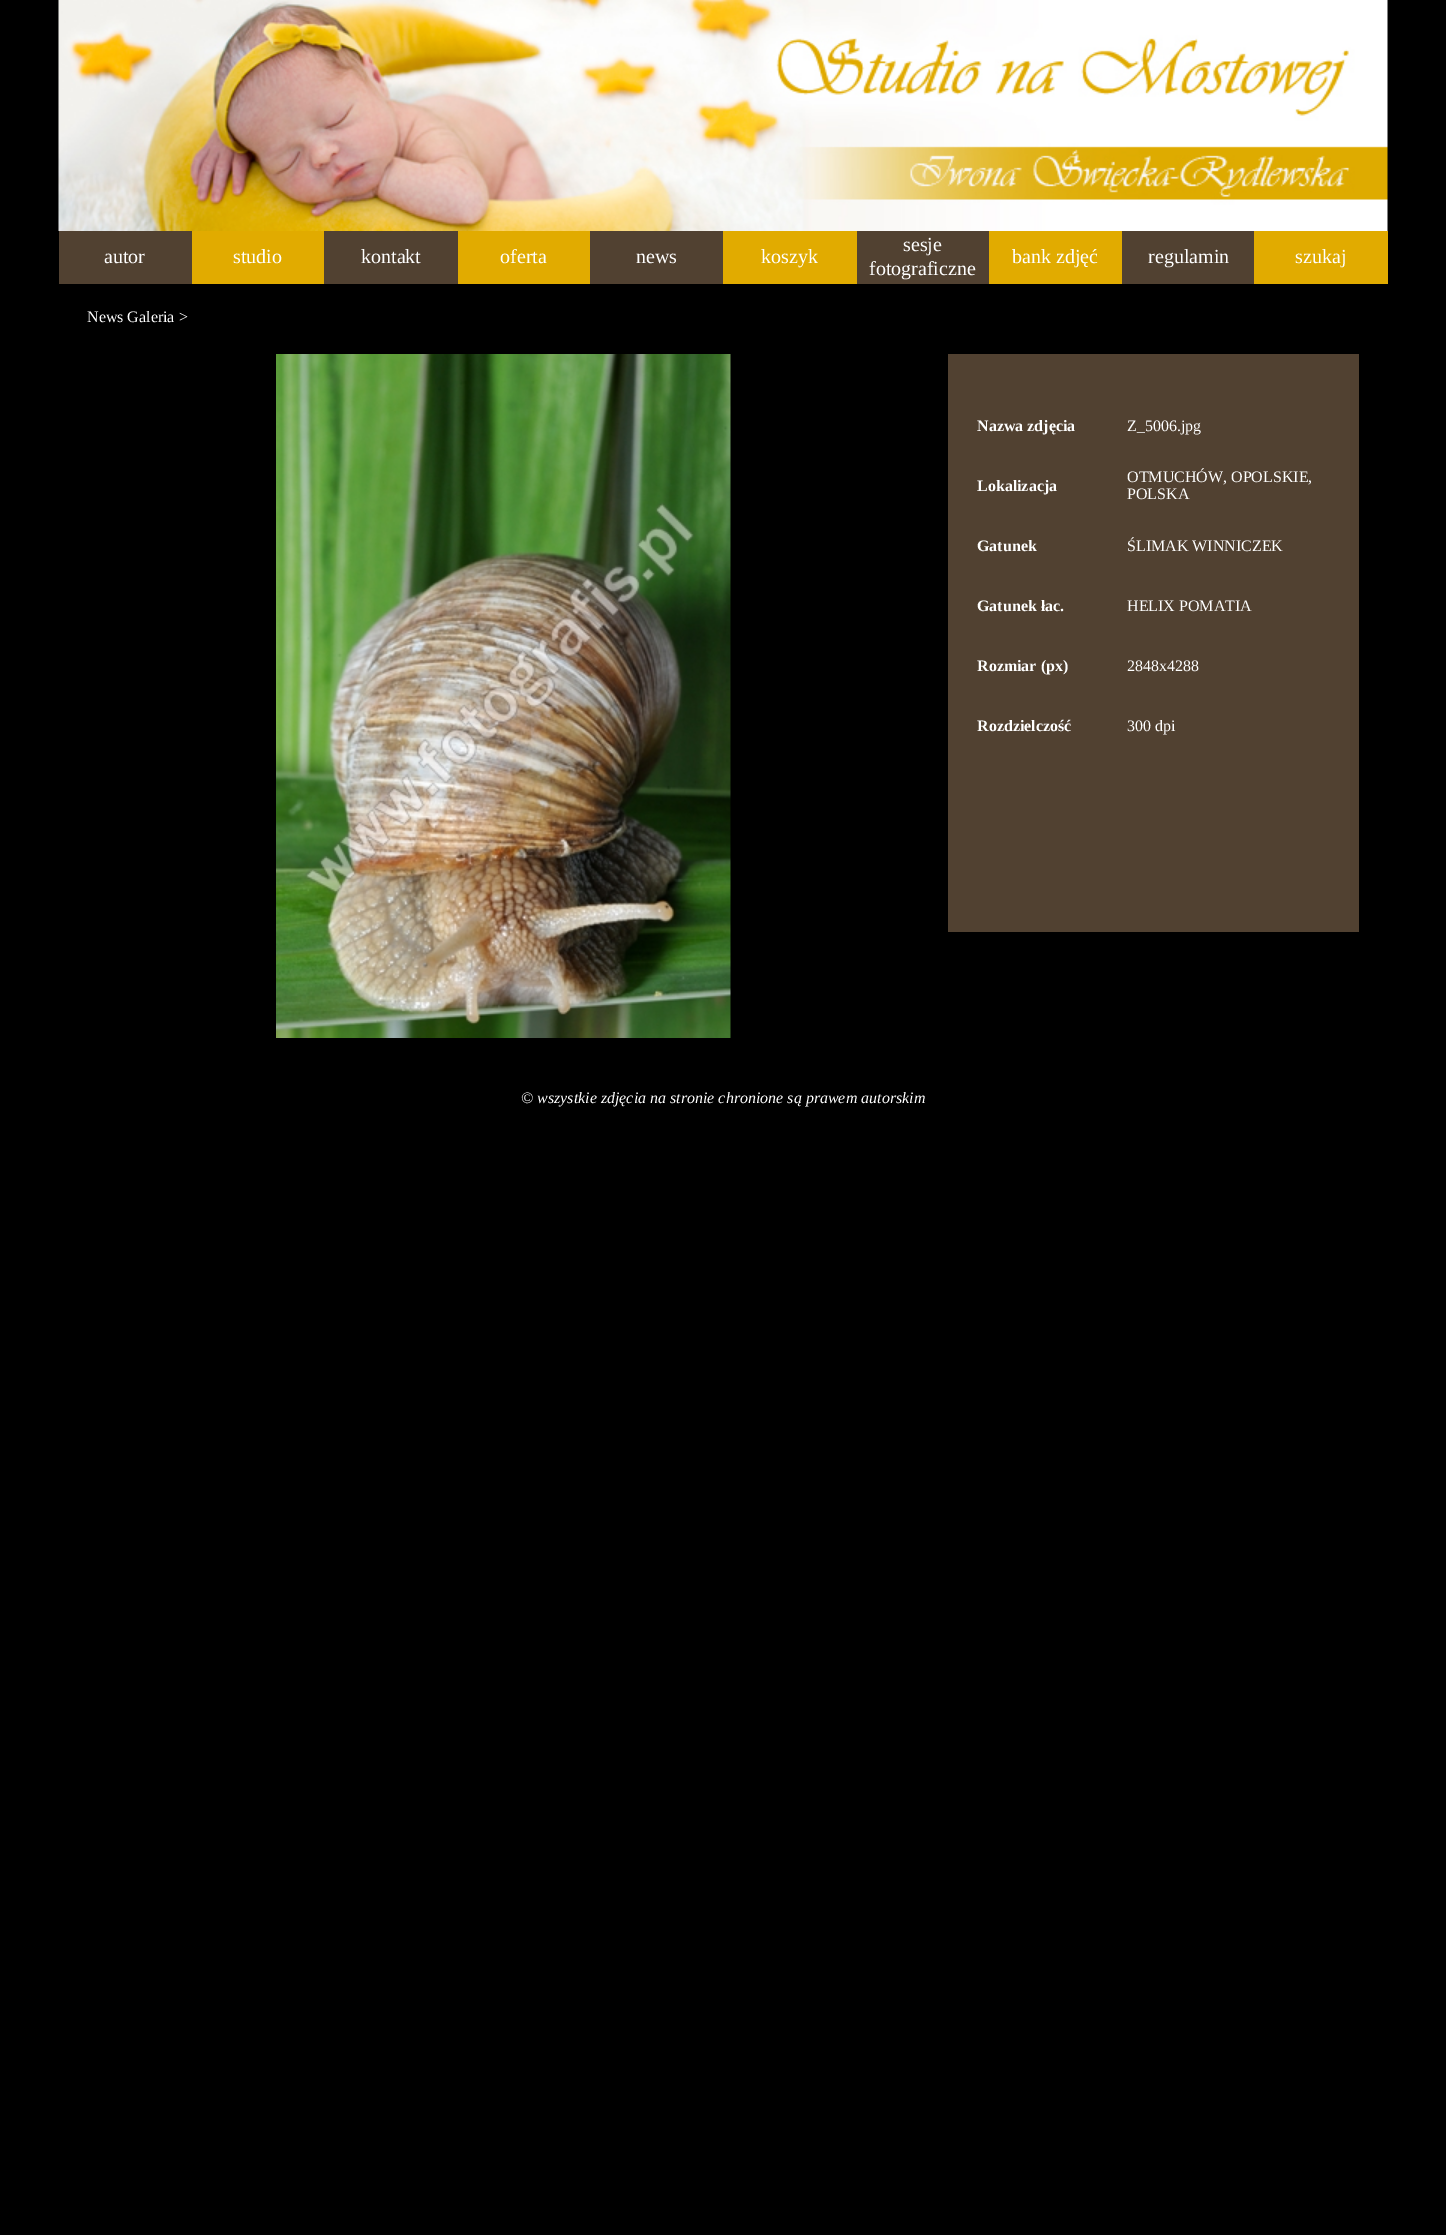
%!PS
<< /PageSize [1446 2235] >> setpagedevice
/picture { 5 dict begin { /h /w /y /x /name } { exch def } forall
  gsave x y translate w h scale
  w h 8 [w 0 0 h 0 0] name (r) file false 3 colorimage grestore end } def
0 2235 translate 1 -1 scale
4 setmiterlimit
0 setgray
0 0 1446 2235 rectfill
(img1.rgb) 58 0 1330 231 picture
0.882 0.671 0 setrgbcolor
192 231 1196 53 rectfill
0.318 0.255 0.192 setrgbcolor
59 231 133 53 rectfill
/LiberationSerif-Regular [20 0 0 -20 0 0] selectfont
1 setgray
104 263 moveto (autor) show
233 263 moveto (studio) show
0.318 0.255 0.192 setrgbcolor
324 231 134 53 rectfill
1 setgray
361 263 moveto (kontakt) show
500 263 moveto (oferta) show
0.318 0.255 0.192 setrgbcolor
590 231 133 53 rectfill
1 setgray
636 263 moveto (news) show
761 263 moveto (koszyk) show
0.318 0.255 0.192 setrgbcolor
857 231 132 53 rectfill
1 setgray
903 251 moveto (sesje) show
869 275 moveto (fotograficzne) show
1012 263 moveto (bank zdjęć) show
0.318 0.255 0.192 setrgbcolor
1122 231 132 53 rectfill
1 setgray
1148 263 moveto (regulamin) show
1295 263 moveto (szukaj) show
/LiberationSerif-Regular [16 0 0 -16 0 0] selectfont
87 322 moveto (News Galeria >) show
(img2.rgb) 276 354 455 684 picture
0.318 0.255 0.192 setrgbcolor
948 354 29 578 rectfill
977 354 382 578 rectfill
/LiberationSerif-Bold [16 0 0 -16 0 0] selectfont
1 setgray
977 431 moveto (Nazwa zdjęcia) show
/LiberationSerif-Regular [16 0 0 -16 0 0] selectfont
1127 431 moveto (Z_5006.jpg) show
/LiberationSerif-Bold [16 0 0 -16 0 0] selectfont
977 491 moveto (Lokalizacja) show
/LiberationSerif-Regular [16 0 0 -16 0 0] selectfont
1127 482 moveto (OTMUCHÓW, OPOLSKIE,) show
1127 499 moveto (POLSKA) show
/LiberationSerif-Bold [16 0 0 -16 0 0] selectfont
977 551 moveto (Gatunek) show
/LiberationSerif-Regular [16 0 0 -16 0 0] selectfont
1127 551 moveto (ŚLIMAK WINNICZEK) show
/LiberationSerif-Bold [16 0 0 -16 0 0] selectfont
977 611 moveto (Gatunek łac.) show
/LiberationSerif-Regular [16 0 0 -16 0 0] selectfont
1127 611 moveto (HELIX POMATIA) show
/LiberationSerif-Bold [16 0 0 -16 0 0] selectfont
977 671 moveto (Rozmiar \(px\)) show
/LiberationSerif-Regular [16 0 0 -16 0 0] selectfont
1127 671 moveto (2848x4288) show
/LiberationSerif-Bold [16 0 0 -16 0 0] selectfont
977 731 moveto (Rozdzielczość) show
/LiberationSerif-Regular [16 0 0 -16 0 0] selectfont
1127 731 moveto (300 dpi) show
/LiberationSerif-Italic [16 0 0 -16 0 0] selectfont
521 1103 moveto (© wszystkie zdjęcia na stronie chronione są prawem autorskim) show
showpage
